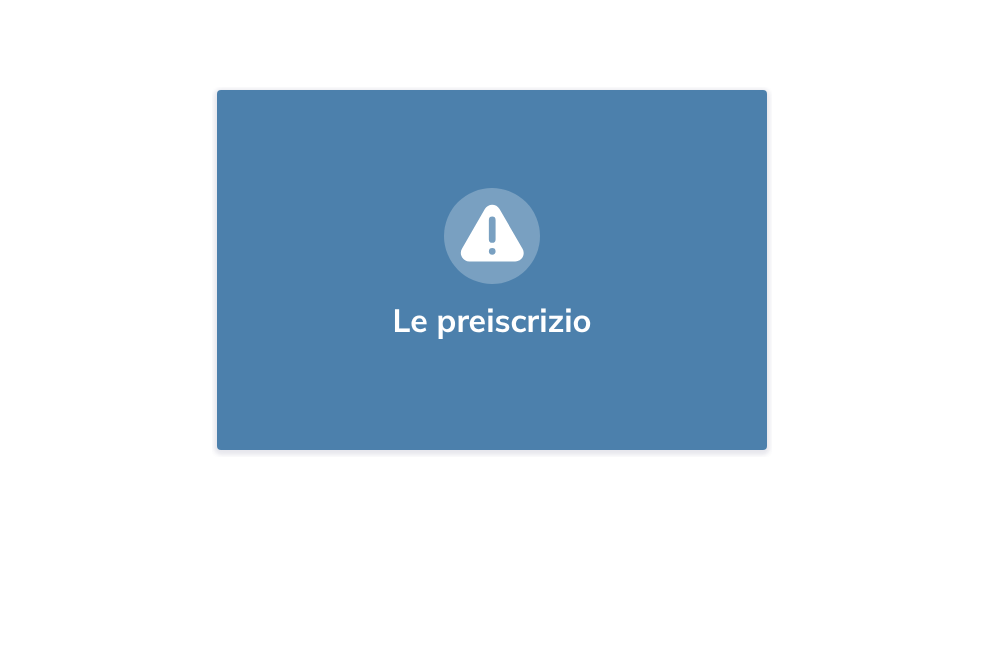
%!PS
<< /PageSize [984 645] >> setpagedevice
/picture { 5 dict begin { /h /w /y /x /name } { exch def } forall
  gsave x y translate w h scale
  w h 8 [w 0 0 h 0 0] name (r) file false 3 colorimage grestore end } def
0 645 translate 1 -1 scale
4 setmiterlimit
1 setgray
0 0 984 645 rectfill
(img1.rgb) 212 87 560 370 picture
showpage
